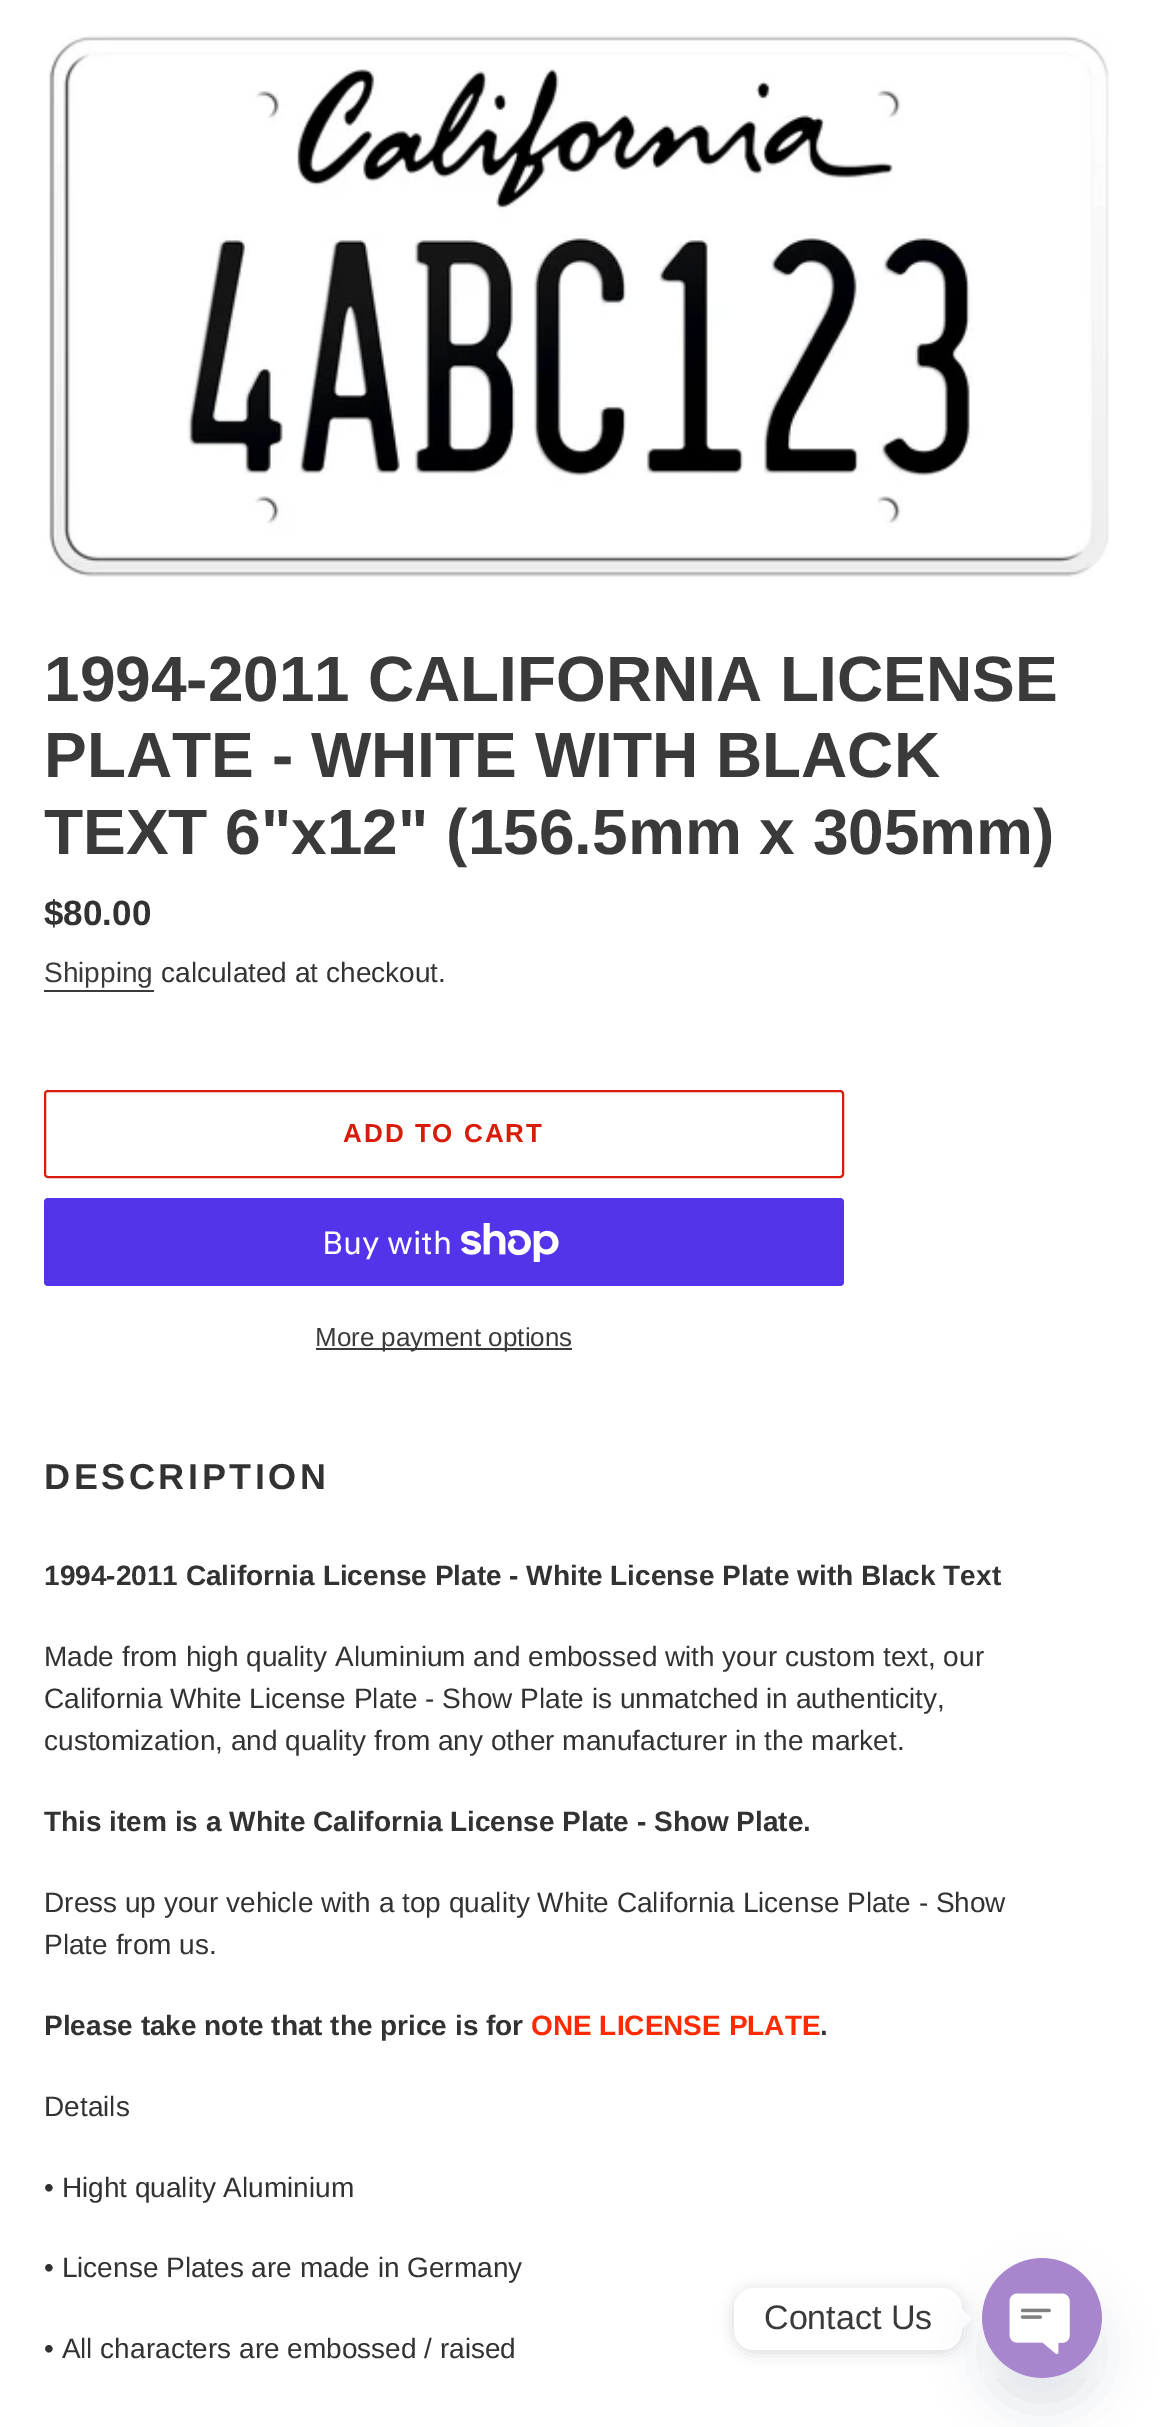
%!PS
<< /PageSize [1160 2427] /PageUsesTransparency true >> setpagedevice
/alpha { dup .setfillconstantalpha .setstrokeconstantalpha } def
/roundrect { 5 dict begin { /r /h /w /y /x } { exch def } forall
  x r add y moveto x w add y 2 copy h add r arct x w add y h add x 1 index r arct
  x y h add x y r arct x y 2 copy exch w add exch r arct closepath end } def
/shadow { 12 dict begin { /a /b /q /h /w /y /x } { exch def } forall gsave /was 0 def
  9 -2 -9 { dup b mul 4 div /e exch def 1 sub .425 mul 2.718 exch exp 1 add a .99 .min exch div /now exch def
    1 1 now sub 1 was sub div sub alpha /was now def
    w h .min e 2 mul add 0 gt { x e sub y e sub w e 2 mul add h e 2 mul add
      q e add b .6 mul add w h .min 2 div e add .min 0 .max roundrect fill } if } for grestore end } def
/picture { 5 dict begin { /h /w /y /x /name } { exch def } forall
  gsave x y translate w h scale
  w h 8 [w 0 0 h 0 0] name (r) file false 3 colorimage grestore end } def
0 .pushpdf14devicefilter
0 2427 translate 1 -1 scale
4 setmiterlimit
1 setgray
0 0 1160 2427 rectfill
(img1.rgb) 47 36 1062 541 picture
/LiberationSans-Bold [64 0 0 -64 0 0] selectfont
0.227 setgray
44 701 moveto (1994-2011 CALIFORNIA LICENSE) show
44 777 moveto (PLATE - WHITE WITH BLACK) show
44 854 moveto (TEXT 6"x12" \(156.5mm x 305mm\)) show
/LiberationSans-Bold [35 0 0 -35 0 0] selectfont
0.2 0.196 0.196 setrgbcolor
44 925 moveto ($80.00) show
/LiberationSans-Regular [28 0 0 -28 0 0] selectfont
0.227 setgray
44 982 moveto (Shipping) show
44 990 110 2 rectfill
0.2 0.196 0.196 setrgbcolor
161 982 moveto (calculated at checkout.) show
0.851 0.11 0.035 setrgbcolor
2 setlinewidth
45 1091 798 86 3 roundrect stroke
/LiberationSans-Bold [26 0 0 -26 0 0] selectfont
343 1142 moveto 2 0 (ADD TO CART) ashow
0.329 0.2 0.922 setrgbcolor
44 1198 800 88 4 roundrect fill
/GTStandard-Regular [32 0 0 -32 0 0] selectfont
1 setgray
322 1254 moveto (Buy with) show
(img2.rgb) 461 1223 98 39 picture
0.227 setgray
316 1348 256 2 rectfill
/LiberationSans-Regular [26 0 0 -26 0 0] selectfont
315 1346 moveto (More payment options) show
/LiberationSans-Bold [36 0 0 -36 0 0] selectfont
0.2 0.196 0.196 setrgbcolor
44 1489 moveto 3.6 0 (DESCRIPTION) ashow
/LiberationSans-Bold [28 0 0 -28 0 0] selectfont
44 1585 moveto (1994-2011 California License Plate - White License Plate with Black Text) show
/LiberationSans-Regular [28 0 0 -28 0 0] selectfont
44 1666 moveto (Made from high quality Aluminium and embossed with your custom text, our) show
44 1708 moveto (California White License Plate - Show Plate is unmatched in authenticity,) show
44 1750 moveto (customization, and quality from any other manufacturer in the market.) show
/LiberationSans-Bold [28 0 0 -28 0 0] selectfont
44 1831 moveto (This item is a White California License Plate - Show Plate.) show
/LiberationSans-Regular [28 0 0 -28 0 0] selectfont
44 1912 moveto (Dress up your vehicle with a top quality White California License Plate - Show) show
44 1954 moveto (Plate from us.) show
/LiberationSans-Bold [28 0 0 -28 0 0] selectfont
44 2035 moveto (Please take note that the price is for) show
1 0.165 0 setrgbcolor
531 2035 moveto (ONE LICENSE PLATE) show
0.2 0.196 0.196 setrgbcolor
820 2035 moveto (.) show
/LiberationSans-Regular [28 0 0 -28 0 0] selectfont
44 2116 moveto (Details) show
44 2197 moveto (• Hight quality Aluminium) show
44 2277 moveto (• License Plates are made in Germany) show
44 2358 moveto (• All characters are embossed / raised) show
0 setgray
734 2290 228 62 20 7.5 0.15 shadow
1 setgray
734 2288 228 62 20 roundrect fill
/LiberationSans-Regular [34 0 0 -34 0 0] selectfont
0.227 setgray
764 2329 moveto (Contact Us) show
1 setgray
newpath 962 2329 moveto 962 2309 lineto 972 2319 lineto closepath fill
0.286 0.408 0.494 setrgbcolor
982 2290 120 120 60 24 0.16 shadow
(img3.rgb) 982 2258 120 120 picture
.poppdf14devicefilter showpage
